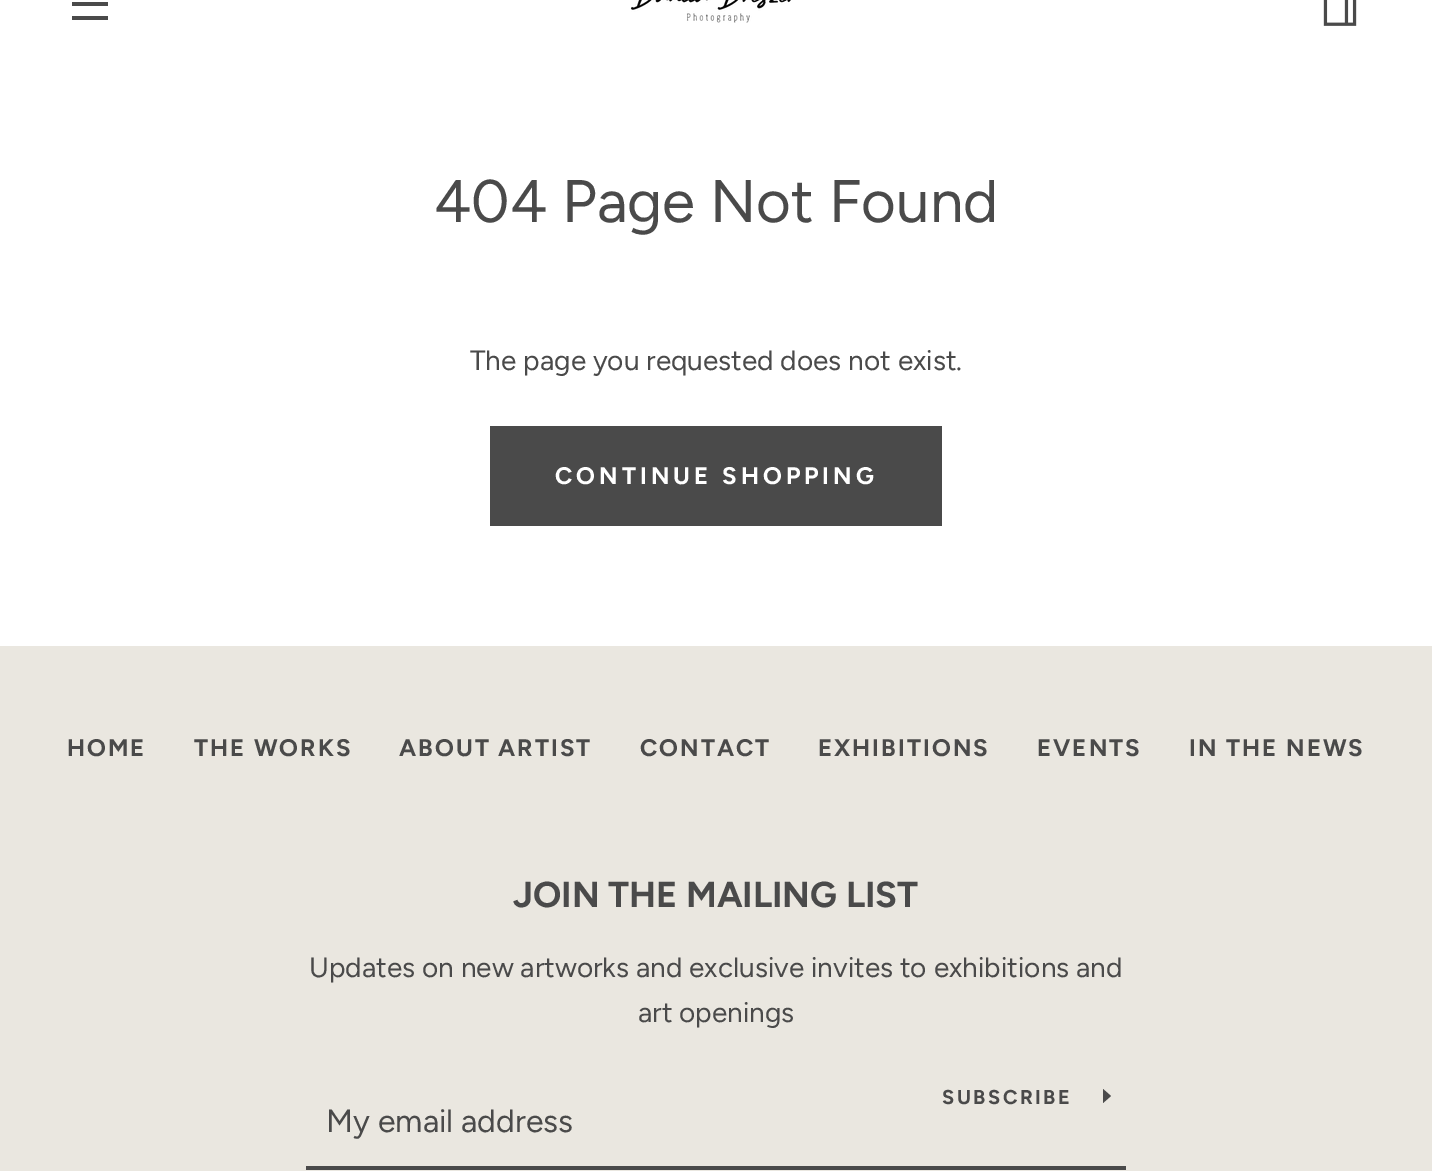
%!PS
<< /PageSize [1432 1171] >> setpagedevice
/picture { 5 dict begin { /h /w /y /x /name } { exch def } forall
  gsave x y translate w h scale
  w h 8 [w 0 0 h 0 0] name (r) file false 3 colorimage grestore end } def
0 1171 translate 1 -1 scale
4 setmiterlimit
1 setgray
0 0 1432 1171 rectfill
0.29 setgray
72 2 36 4 rectfill
72 16 36 4 rectfill
(img1.rgb) 630 0 161 23 picture
(img2.rgb) 1323 0 34 26 picture
/Figtree-Regular [60 0 0 -60 0 0] selectfont
434 222 moveto (404 Page Not Found) show
/Figtree-Regular [28 0 0 -28 0 0] selectfont
470 370 moveto (The page you requested does not exist.) show
490 426 452 100 rectfill
/Figtree-Bold [24 0 0 -24 0 0] selectfont
1 setgray
555 484 moveto 4 0 (CONTINUE SHOPPING) ashow
0.918 0.906 0.878 setrgbcolor
0 646 1432 525 rectfill
0.29 setgray
67 756 moveto 2 0 (HOME) ashow
194 756 moveto 2 0 (THE WORKS) ashow
399 756 moveto 2 0 (ABOUT ARTIST) ashow
640 756 moveto 2 0 (CONTACT) ashow
818 756 moveto 2 0 (EXHIBITIONS) ashow
1037 756 moveto 2 0 (EVENTS) ashow
1189 756 moveto 2 0 (IN THE NEWS) ashow
/Figtree-Bold [36 0 0 -36 0 0] selectfont
513 907 moveto (JOIN THE MAILING LIST) show
/Figtree-Regular [28 0 0 -28 0 0] selectfont
309 977 moveto (Updates on new artworks and exclusive invites to exhibitions and) show
638 1022 moveto (art openings) show
306 1166 820 4 rectfill
/Figtree-Bold [20 0 0 -20 0 0] selectfont
942 1104 moveto 2.5 0 (SUBSCRIBE) ashow
newpath 1111 1096 moveto 1103 1103 lineto 1103 1089 lineto closepath fill
/Figtree-Regular [32 0 0 -32 0 0] selectfont
326 1132 moveto (My email address) show
showpage
